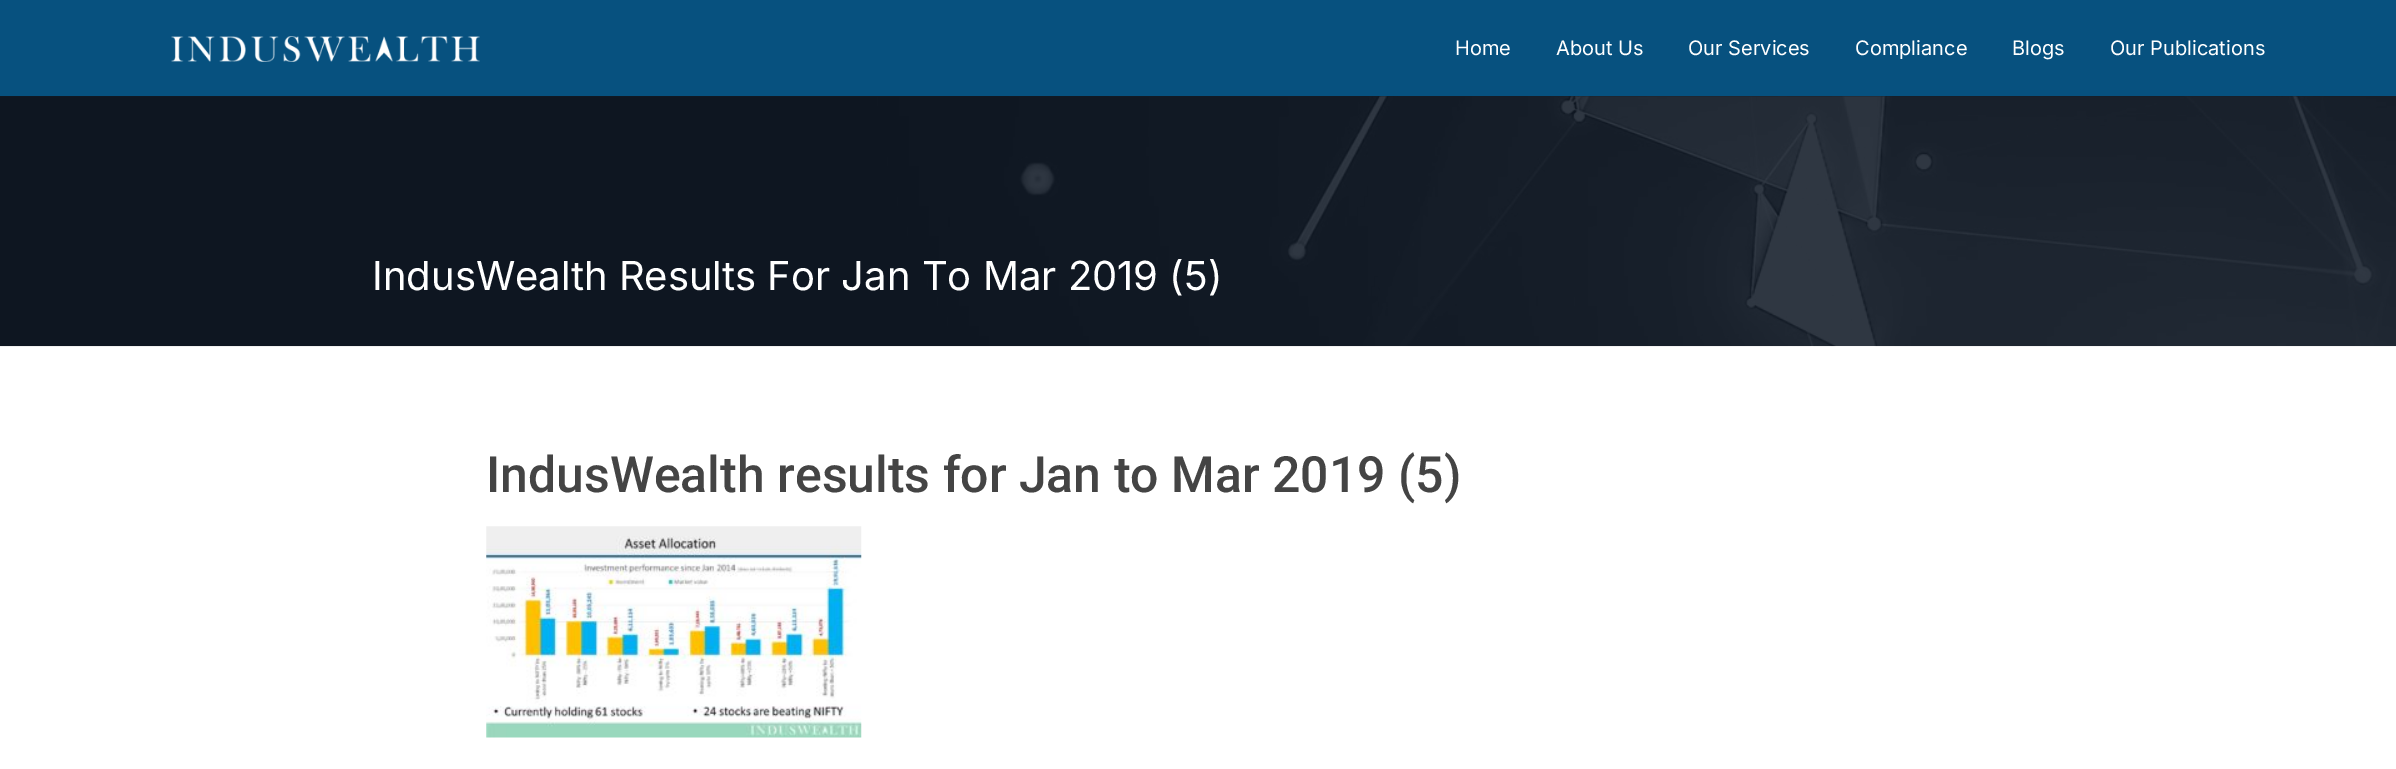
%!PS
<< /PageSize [2396 769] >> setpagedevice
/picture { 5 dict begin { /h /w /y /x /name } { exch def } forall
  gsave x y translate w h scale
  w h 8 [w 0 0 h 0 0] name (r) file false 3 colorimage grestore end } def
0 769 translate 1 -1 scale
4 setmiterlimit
1 setgray
0 0 2396 769 rectfill
0.027 0.318 0.498 setrgbcolor
0 0 2396 96 rectfill
(img1.rgb) 171 36 309 26 picture
/Inter-Regular [20 0 0 -20 0 0] selectfont
1 setgray
1455 55 moveto (Home) show
1556 55 moveto (About Us) show
1688 55 moveto (Our Services) show
1855 55 moveto (Compliance) show
2012 55 moveto (Blogs) show
2110 55 moveto (Our Publications) show
0.071 0.114 0.169 setrgbcolor
0 96 2396 250 rectfill
(img2.rgb) 0 96 2396 251 picture
/Inter-Regular [40 0 0 -40 0 0] selectfont
1 setgray
372 290 moveto (IndusWealth Results For Jan To Mar 2019 \(5\)) show
/Roboto-Medium [50 0 0 -50 0 0] selectfont
0.267 setgray
486 492 moveto (IndusWealth results for Jan to Mar 2019 \(5\)) show
(img3.rgb) 486 526 376 212 picture
showpage
